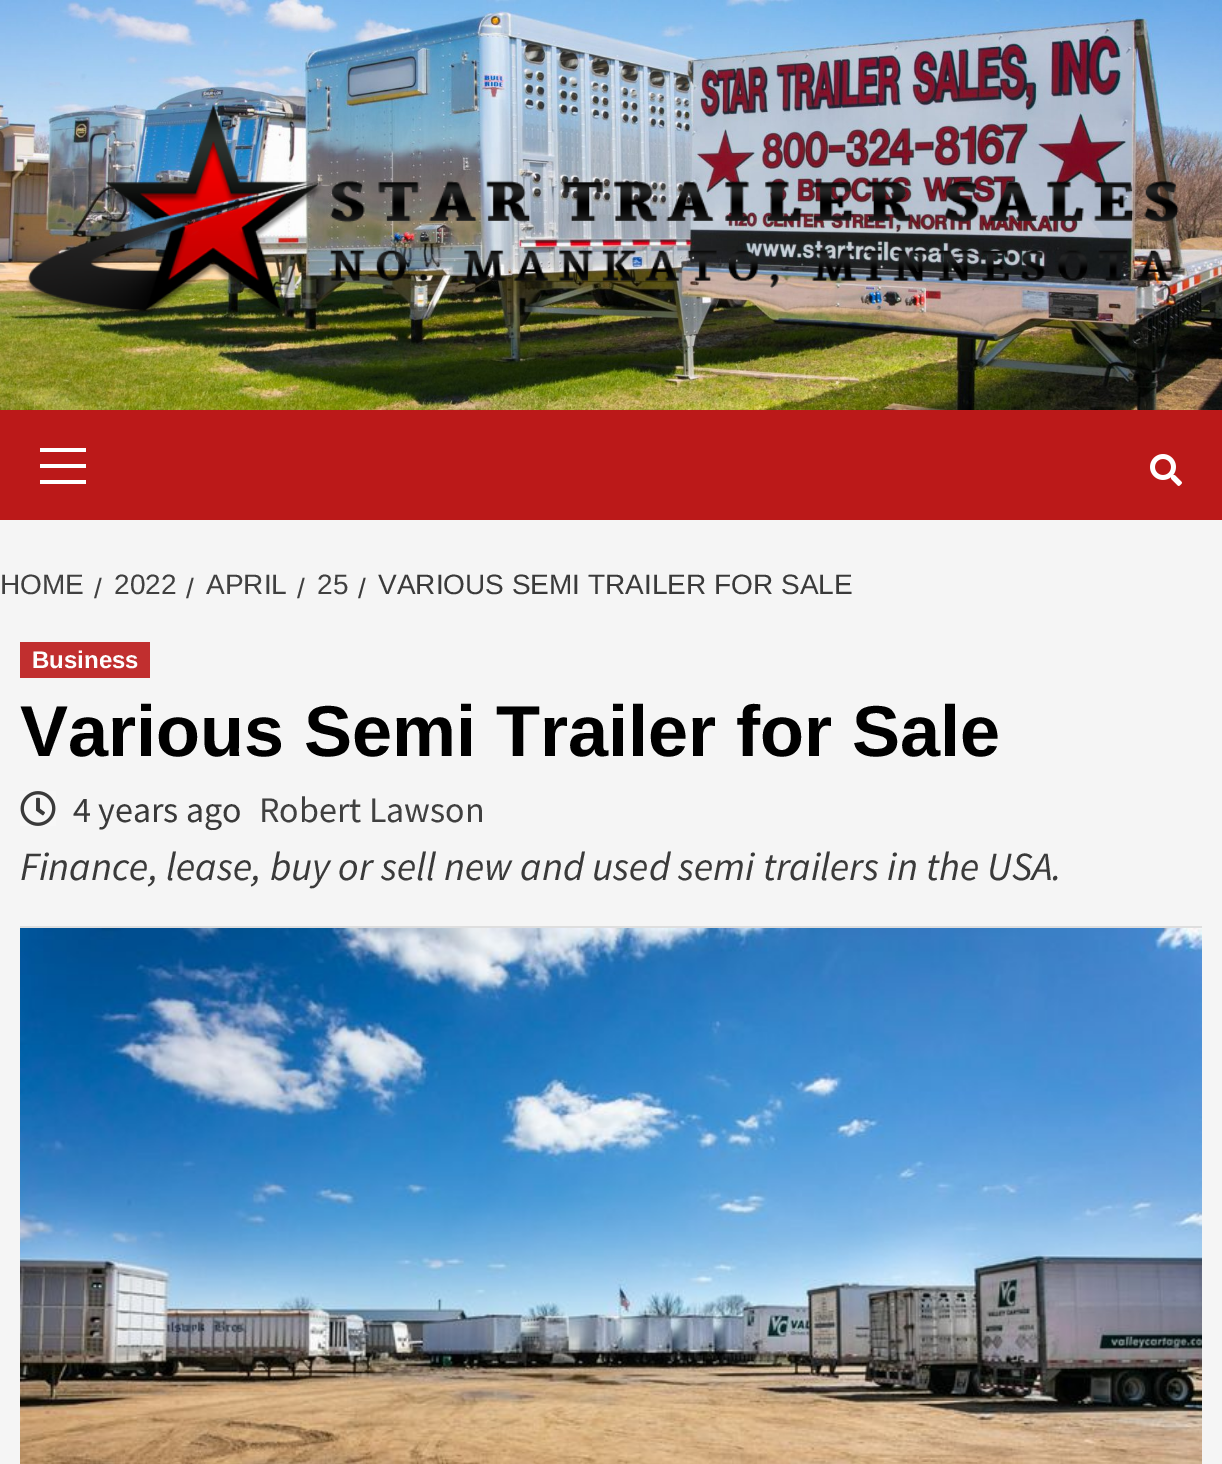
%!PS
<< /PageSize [1222 1464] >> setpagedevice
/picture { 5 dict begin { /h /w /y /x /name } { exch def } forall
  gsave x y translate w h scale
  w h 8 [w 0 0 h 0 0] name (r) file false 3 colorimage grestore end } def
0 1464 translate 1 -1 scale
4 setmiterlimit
0.961 setgray
0 0 1222 1464 rectfill
(img1.rgb) 0 0 1222 410 picture
(img2.rgb) 26 104 1153 214 picture
0.733 0.098 0.098 setrgbcolor
0 410 1222 110 rectfill
1 setgray
40 464 46 4 rectfill
40 448 46 4 rectfill
40 480 46 4 rectfill
(img3.rgb) 1150 454 32 32 picture
/LiberationSans-Regular [28 0 0 -28 0 0] selectfont
0.251 setgray
0 594 moveto (HOME) show
94 598 moveto (/) show
114 594 moveto (2022) show
186 598 moveto (/) show
206 594 moveto (APRIL) show
297 598 moveto (/) show
317 594 moveto (25) show
0.227 setgray
358 598 moveto (/) show
378 594 moveto (VARIOUS SEMI TRAILER FOR SALE) show
0.871 setgray
20 926 1182 2 rectfill
0.757 0.184 0.184 setrgbcolor
20 642 130 36 rectfill
/LiberationSans-Bold [24 0 0 -24 0 0] selectfont
0.996 setgray
32 668 moveto (Business) show
/LiberationSans-Bold [72 0 0 -72 0 0] selectfont
0 setgray
20 756 moveto (Various Semi Trailer for Sale) show
(img4.rgb) 20 791 36 35 picture
/SourceSansPro-Regular [36 0 0 -36 0 0] selectfont
0.227 setgray
73 822 moveto (4 years ago) show
0.251 setgray
259 822 moveto (Robert Lawson) show
/SourceSansPro-Italic [40 0 0 -40 0 0] selectfont
0.227 setgray
20 880 moveto (Finance, lease, buy or sell new and used semi trailers in the USA.) show
(img5.rgb) 20 928 1182 536 picture
showpage
